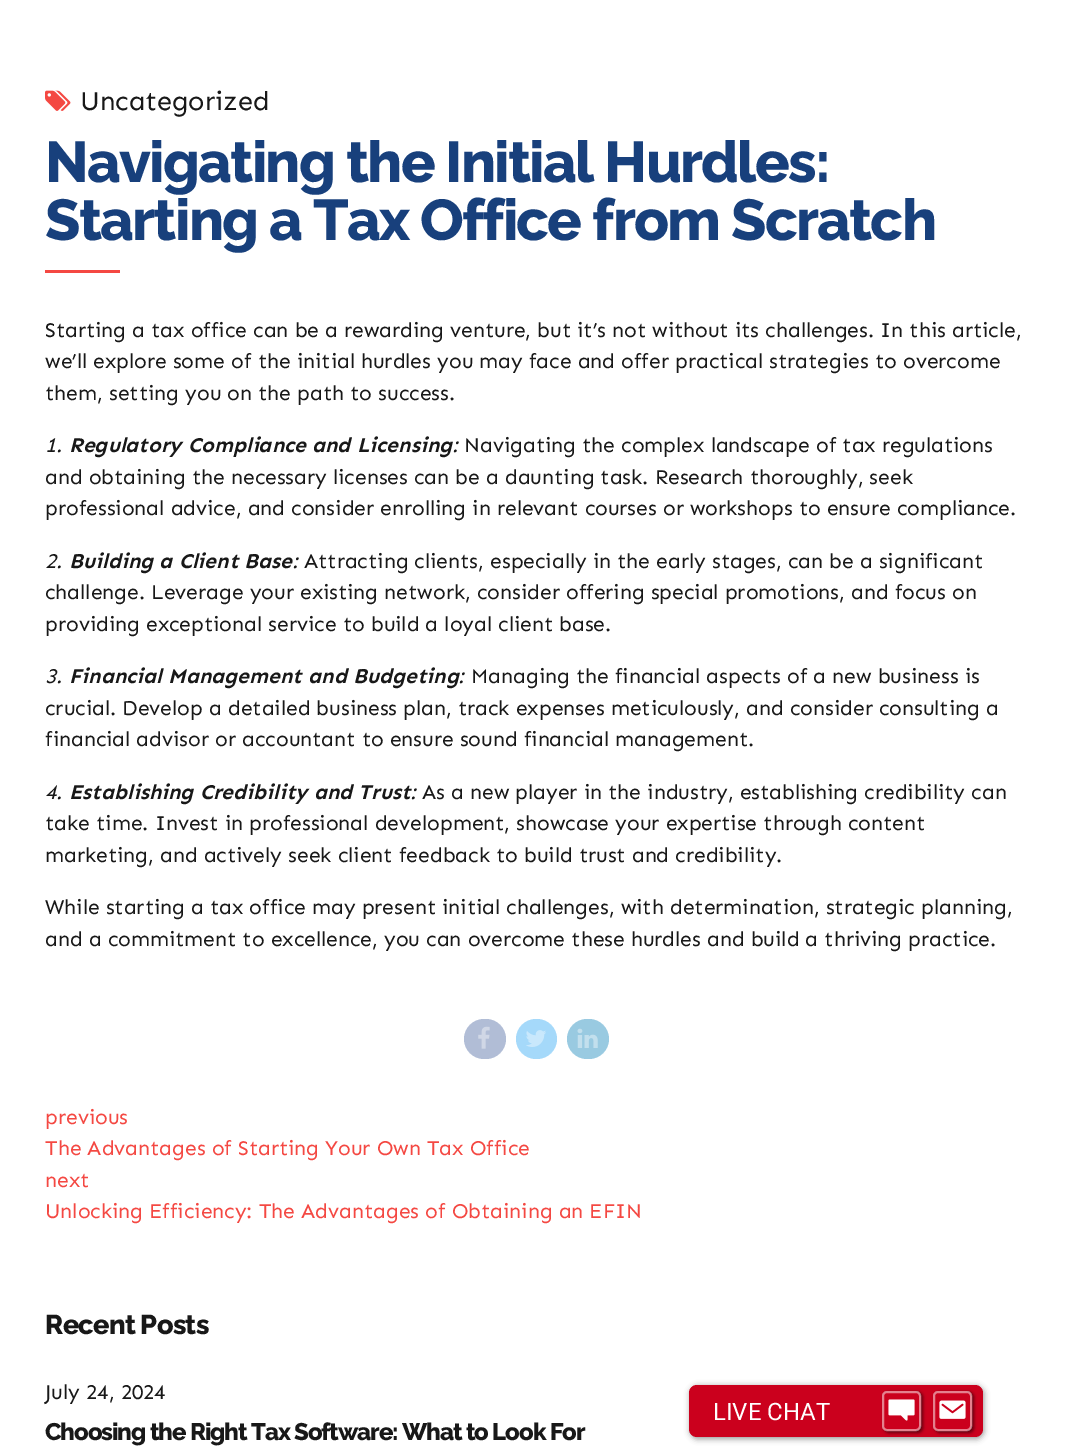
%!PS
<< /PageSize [1072 1451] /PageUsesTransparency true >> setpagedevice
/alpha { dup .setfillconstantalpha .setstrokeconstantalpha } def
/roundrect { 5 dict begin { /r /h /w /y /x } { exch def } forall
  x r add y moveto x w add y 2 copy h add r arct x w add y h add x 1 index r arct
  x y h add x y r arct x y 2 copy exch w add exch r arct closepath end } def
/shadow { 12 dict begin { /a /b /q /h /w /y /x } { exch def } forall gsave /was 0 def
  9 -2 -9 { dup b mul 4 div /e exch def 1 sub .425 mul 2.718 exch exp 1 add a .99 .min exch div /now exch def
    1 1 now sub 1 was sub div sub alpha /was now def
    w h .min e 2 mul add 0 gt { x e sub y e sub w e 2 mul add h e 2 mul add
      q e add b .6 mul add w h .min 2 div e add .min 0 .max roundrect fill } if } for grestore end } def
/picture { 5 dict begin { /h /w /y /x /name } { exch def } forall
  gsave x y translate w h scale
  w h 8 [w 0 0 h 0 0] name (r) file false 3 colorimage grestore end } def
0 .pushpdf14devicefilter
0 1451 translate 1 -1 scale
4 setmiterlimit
1 setgray
0 0 1072 1451 rectfill
(img1.rgb) 45 90 26 21 picture
/Sen-Regular [27 0 0 -27 0 0] selectfont
0.094 setgray
80 110 moveto (Uncategorized) show
/Raleway-ExtraBold [57.6 0 0 -57.6 0 0] selectfont
0.094 0.251 0.486 setrgbcolor
45 182 moveto -1.75 0 (Navigating the Initial Hurdles:) ashow
45 240 moveto -1.75 0 (Starting a Tax Office from Scratch) ashow
0.957 0.282 0.259 setrgbcolor
45 270 75 3 rectfill
/Sen-Regular [21 0 0 -21 0 0] selectfont
0.094 setgray
45 337 moveto (Starting a tax office can be a rewarding venture, but it’s not without its challenges. In this article,) show
45 368 moveto (we’ll explore some of the initial hurdles you may face and offer practical strategies to overcome) show
45 400 moveto (them, setting you on the path to success.) show
/Sen-Italic [21 0 0 -21 0 0] selectfont
45 452 moveto (1.) show
/Sen-BoldItalic [21 0 0 -21 0 0] selectfont
69 452 moveto (Regulatory Compliance and Licensing) show
/Sen-Italic [21 0 0 -21 0 0] selectfont
452 452 moveto (:) show
/Sen-Regular [21 0 0 -21 0 0] selectfont
464 452 moveto (Navigating the complex landscape of tax regulations) show
45 484 moveto (and obtaining the necessary licenses can be a daunting task. Research thoroughly, seek) show
45 515 moveto (professional advice, and consider enrolling in relevant courses or workshops to ensure compliance.) show
/Sen-Italic [21 0 0 -21 0 0] selectfont
45 568 moveto (2.) show
/Sen-BoldItalic [21 0 0 -21 0 0] selectfont
69 568 moveto (Building a Client Base) show
/Sen-Italic [21 0 0 -21 0 0] selectfont
292 568 moveto (:) show
/Sen-Regular [21 0 0 -21 0 0] selectfont
304 568 moveto (Attracting clients, especially in the early stages, can be a significant) show
45 599 moveto (challenge. Leverage your existing network, consider offering special promotions, and focus on) show
45 631 moveto (providing exceptional service to build a loyal client base.) show
/Sen-Italic [21 0 0 -21 0 0] selectfont
45 683 moveto (3.) show
/Sen-BoldItalic [21 0 0 -21 0 0] selectfont
69 683 moveto (Financial Management and Budgeting) show
/Sen-Italic [21 0 0 -21 0 0] selectfont
458 683 moveto (:) show
/Sen-Regular [21 0 0 -21 0 0] selectfont
471 683 moveto (Managing the financial aspects of a new business is) show
45 715 moveto (crucial. Develop a detailed business plan, track expenses meticulously, and consider consulting a) show
45 746 moveto (financial advisor or accountant to ensure sound financial management.) show
/Sen-Italic [21 0 0 -21 0 0] selectfont
45 799 moveto (4.) show
/Sen-BoldItalic [21 0 0 -21 0 0] selectfont
69 799 moveto (Establishing Credibility and Trust) show
/Sen-Italic [21 0 0 -21 0 0] selectfont
410 799 moveto (:) show
/Sen-Regular [21 0 0 -21 0 0] selectfont
422 799 moveto (As a new player in the industry, establishing credibility can) show
45 830 moveto (take time. Invest in professional development, showcase your expertise through content) show
45 862 moveto (marketing, and actively seek client feedback to build trust and credibility.) show
45 914 moveto (While starting a tax office may present initial challenges, with determination, strategic planning,) show
45 946 moveto (and a commitment to excellence, you can overcome these hurdles and build a thriving practice.) show
0.694 0.741 0.839 setrgbcolor
464 1019 42 40 20 roundrect fill
(img2.rgb) 478 1026 12 23 picture
0.647 0.851 0.98 setrgbcolor
516 1019 41 40 20 roundrect fill
(img3.rgb) 526 1030 20 17 picture
0.6 0.792 0.882 setrgbcolor
567 1019 42 40 20 roundrect fill
(img4.rgb) 577 1028 21 20 picture
0.957 0.282 0.259 setrgbcolor
45 1124 moveto (previous) show
45 1155 moveto (The Advantages of Starting Your Own Tax Office) show
45 1187 moveto (next) show
45 1218 moveto (Unlocking Efficiency: The Advantages of Obtaining an EFIN) show
/Raleway-ExtraBold [27.25 0 0 -27.25 0 0] selectfont
0.094 setgray
45 1334 moveto -0.75 0 (Recent Posts) ashow
/Sen-Regular [21 0 0 -21 0 0] selectfont
45 1399 moveto (July 24, 2024) show
/Raleway-ExtraBold [24 0 0 -24 0 0] selectfont
45 1440 moveto -1.1 0 (Choosing the Right Tax Software: What to Look For) ashow
0 setgray
690 1386 294 53 8 3 0.4 shadow
0.796 0 0.114 setrgbcolor
689 1385 294 52 8 roundrect fill
/Roboto-Regular [24 0 0 -24 0 0] selectfont
1 setgray
713 1420 moveto (LIVE CHAT) show
gsave
newpath 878 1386 moveto 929 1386 lineto 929 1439 lineto 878 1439 lineto closepath 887 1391 moveto 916 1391 lineto 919 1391 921 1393 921 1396 curveto 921 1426 lineto 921 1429 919 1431 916 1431 curveto 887 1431 lineto 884 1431 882 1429 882 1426 curveto 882 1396 lineto 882 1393 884 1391 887 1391 curveto closepath eoclip newpath
0 setgray
884 1392 39 41 5 1.5 0.5 shadow
grestore
0.5 alpha
2 setlinewidth
883 1392 37 38 4 roundrect stroke
1 alpha
(img5.rgb) 888 1399 27 22 picture
gsave
newpath 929 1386 moveto 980 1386 lineto 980 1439 lineto 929 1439 lineto closepath 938 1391 moveto 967 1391 lineto 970 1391 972 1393 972 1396 curveto 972 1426 lineto 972 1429 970 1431 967 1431 curveto 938 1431 lineto 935 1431 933 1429 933 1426 curveto 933 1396 lineto 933 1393 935 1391 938 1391 curveto closepath eoclip newpath
0 setgray
935 1392 39 41 5 1.5 0.5 shadow
grestore
0.5 alpha
934 1392 37 38 4 roundrect stroke
1 alpha
(img6.rgb) 939 1400 27 19 picture
.poppdf14devicefilter showpage
